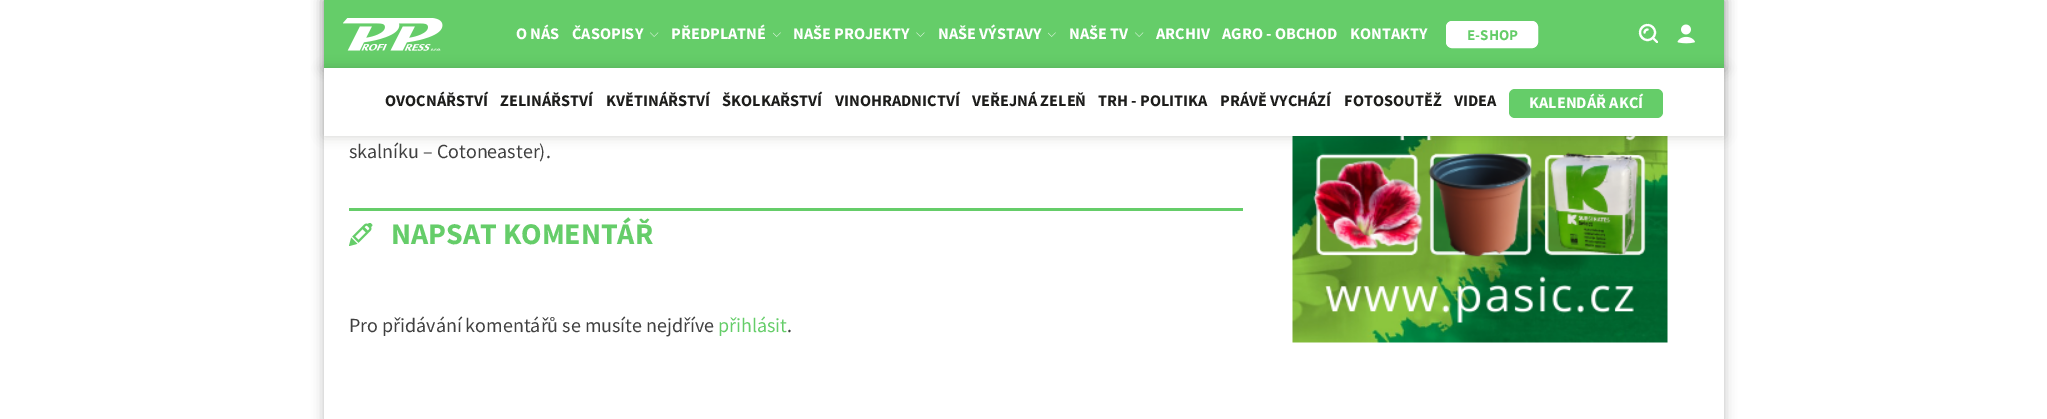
%!PS
<< /PageSize [2047 419] /PageUsesTransparency true >> setpagedevice
/alpha { dup .setfillconstantalpha .setstrokeconstantalpha } def
/roundrect { 5 dict begin { /r /h /w /y /x } { exch def } forall
  x r add y moveto x w add y 2 copy h add r arct x w add y h add x 1 index r arct
  x y h add x y r arct x y 2 copy exch w add exch r arct closepath end } def
/shadow { 12 dict begin { /a /b /q /h /w /y /x } { exch def } forall gsave /was 0 def
  9 -2 -9 { dup b mul 4 div /e exch def 1 sub .425 mul 2.718 exch exp 1 add a .99 .min exch div /now exch def
    1 1 now sub 1 was sub div sub alpha /was now def
    w h .min e 2 mul add 0 gt { x e sub y e sub w e 2 mul add h e 2 mul add
      q e add b .6 mul add w h .min 2 div e add .min 0 .max roundrect fill } if } for grestore end } def
/picture { 5 dict begin { /h /w /y /x /name } { exch def } forall
  gsave x y translate w h scale
  w h 8 [w 0 0 h 0 0] name (r) file false 3 colorimage grestore end } def
0 .pushpdf14devicefilter
0 419 translate 1 -1 scale
4 setmiterlimit
1 setgray
0 0 2047 419 rectfill
0 setgray
324 0 1400 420 0 6 0.25 shadow
1 setgray
324 136 1400 283 rectfill
0 setgray
324 0 1400 69 0 6 0.25 shadow
0.396 0.804 0.412 setrgbcolor
324 0 1400 68 rectfill
(img1.rgb) 343 18 100 33 picture
/SourceSansPro-Bold [16.25 0 0 -16.25 0 0] selectfont
1 setgray
516 39 moveto (O NÁS) show
572 39 moveto (ČASOPISY) show
(img2.rgb) 650 32 9 5 picture
671 39 moveto (PŘEDPLATNÉ) show
(img3.rgb) 773 32 8 5 picture
793 39 moveto (NAŠE PROJEKTY) show
(img4.rgb) 916 32 9 5 picture
938 39 moveto (NAŠE VÝSTAVY) show
(img3.rgb) 1048 32 8 5 picture
1069 39 moveto (NAŠE TV) show
(img2.rgb) 1135 32 9 5 picture
1156 39 moveto (ARCHIV) show
1222 39 moveto (AGRO - OBCHOD) show
1350 39 moveto (KONTAKTY) show
1446.5 21.5 91 26 5.5 roundrect gsave fill grestore
stroke
/SourceSansPro-Bold [15 0 0 -15 0 0] selectfont
0.396 0.804 0.412 setrgbcolor
1467 40 moveto (E-SHOP) show
1 setgray
2.1 setlinewidth
newpath 1647.5 32.5 7.5 0 360 arc closepath stroke
1 setlinecap
newpath 1647.5 29.5 moveto 1646 29.5 1644.5 31 1644.5 32.5 curveto 1657 42 moveto 1654 39 lineto stroke
(img5.rgb) 1677 24 18 20 picture
(img7.rgb) 1292 136 376 207 picture
0.114 0.114 0.106 setrgbcolor
324 68 1400 68 0 6 0.2 shadow
1 setgray
324 68 1400 68 rectfill
/SourceSansPro-Bold [16.25 0 0 -16.25 0 0] selectfont
0.114 0.114 0.106 setrgbcolor
385 106 moveto (OVOCNÁŘSTVÍ) show
500 106 moveto (ZELINÁŘSTVÍ) show
606 106 moveto (KVĚTINÁŘSTVÍ) show
722 106 moveto (ŠKOLKAŘSTVÍ) show
835 106 moveto (VINOHRADNICTVÍ) show
972 106 moveto (VEŘEJNÁ ZELEŇ) show
1098 106 moveto (TRH - POLITIKA) show
1220 106 moveto (PRÁVĚ VYCHÁZÍ) show
1344 106 moveto (FOTOSOUTĚŽ) show
1454 106 moveto (VIDEA) show
0.396 0.804 0.412 setrgbcolor
1509 89 154 29 6 roundrect fill
1 setgray
1529 108 moveto (KALENDÁŘ AKCÍ) show
/SourceSansPro-Regular [20 0 0 -20 0 0] selectfont
0.251 setgray
349 158 moveto (skalníku – Cotoneaster\).) show
0.396 0.804 0.412 setrgbcolor
349 208 894 3 rectfill
(img6.rgb) 349 223 24 23 picture
/SourceSansPro-Bold [30 0 0 -30 0 0] selectfont
391 244 moveto (NAPSAT KOMENTÁŘ) show
/SourceSansPro-Regular [20 0 0 -20 0 0] selectfont
0.251 setgray
349 332 moveto (Pro přidávání komentářů se musíte nejdříve) show
0.396 0.804 0.412 setrgbcolor
718 332 moveto (přihlásit) show
0.251 setgray
787 332 moveto (.) show
.poppdf14devicefilter showpage
